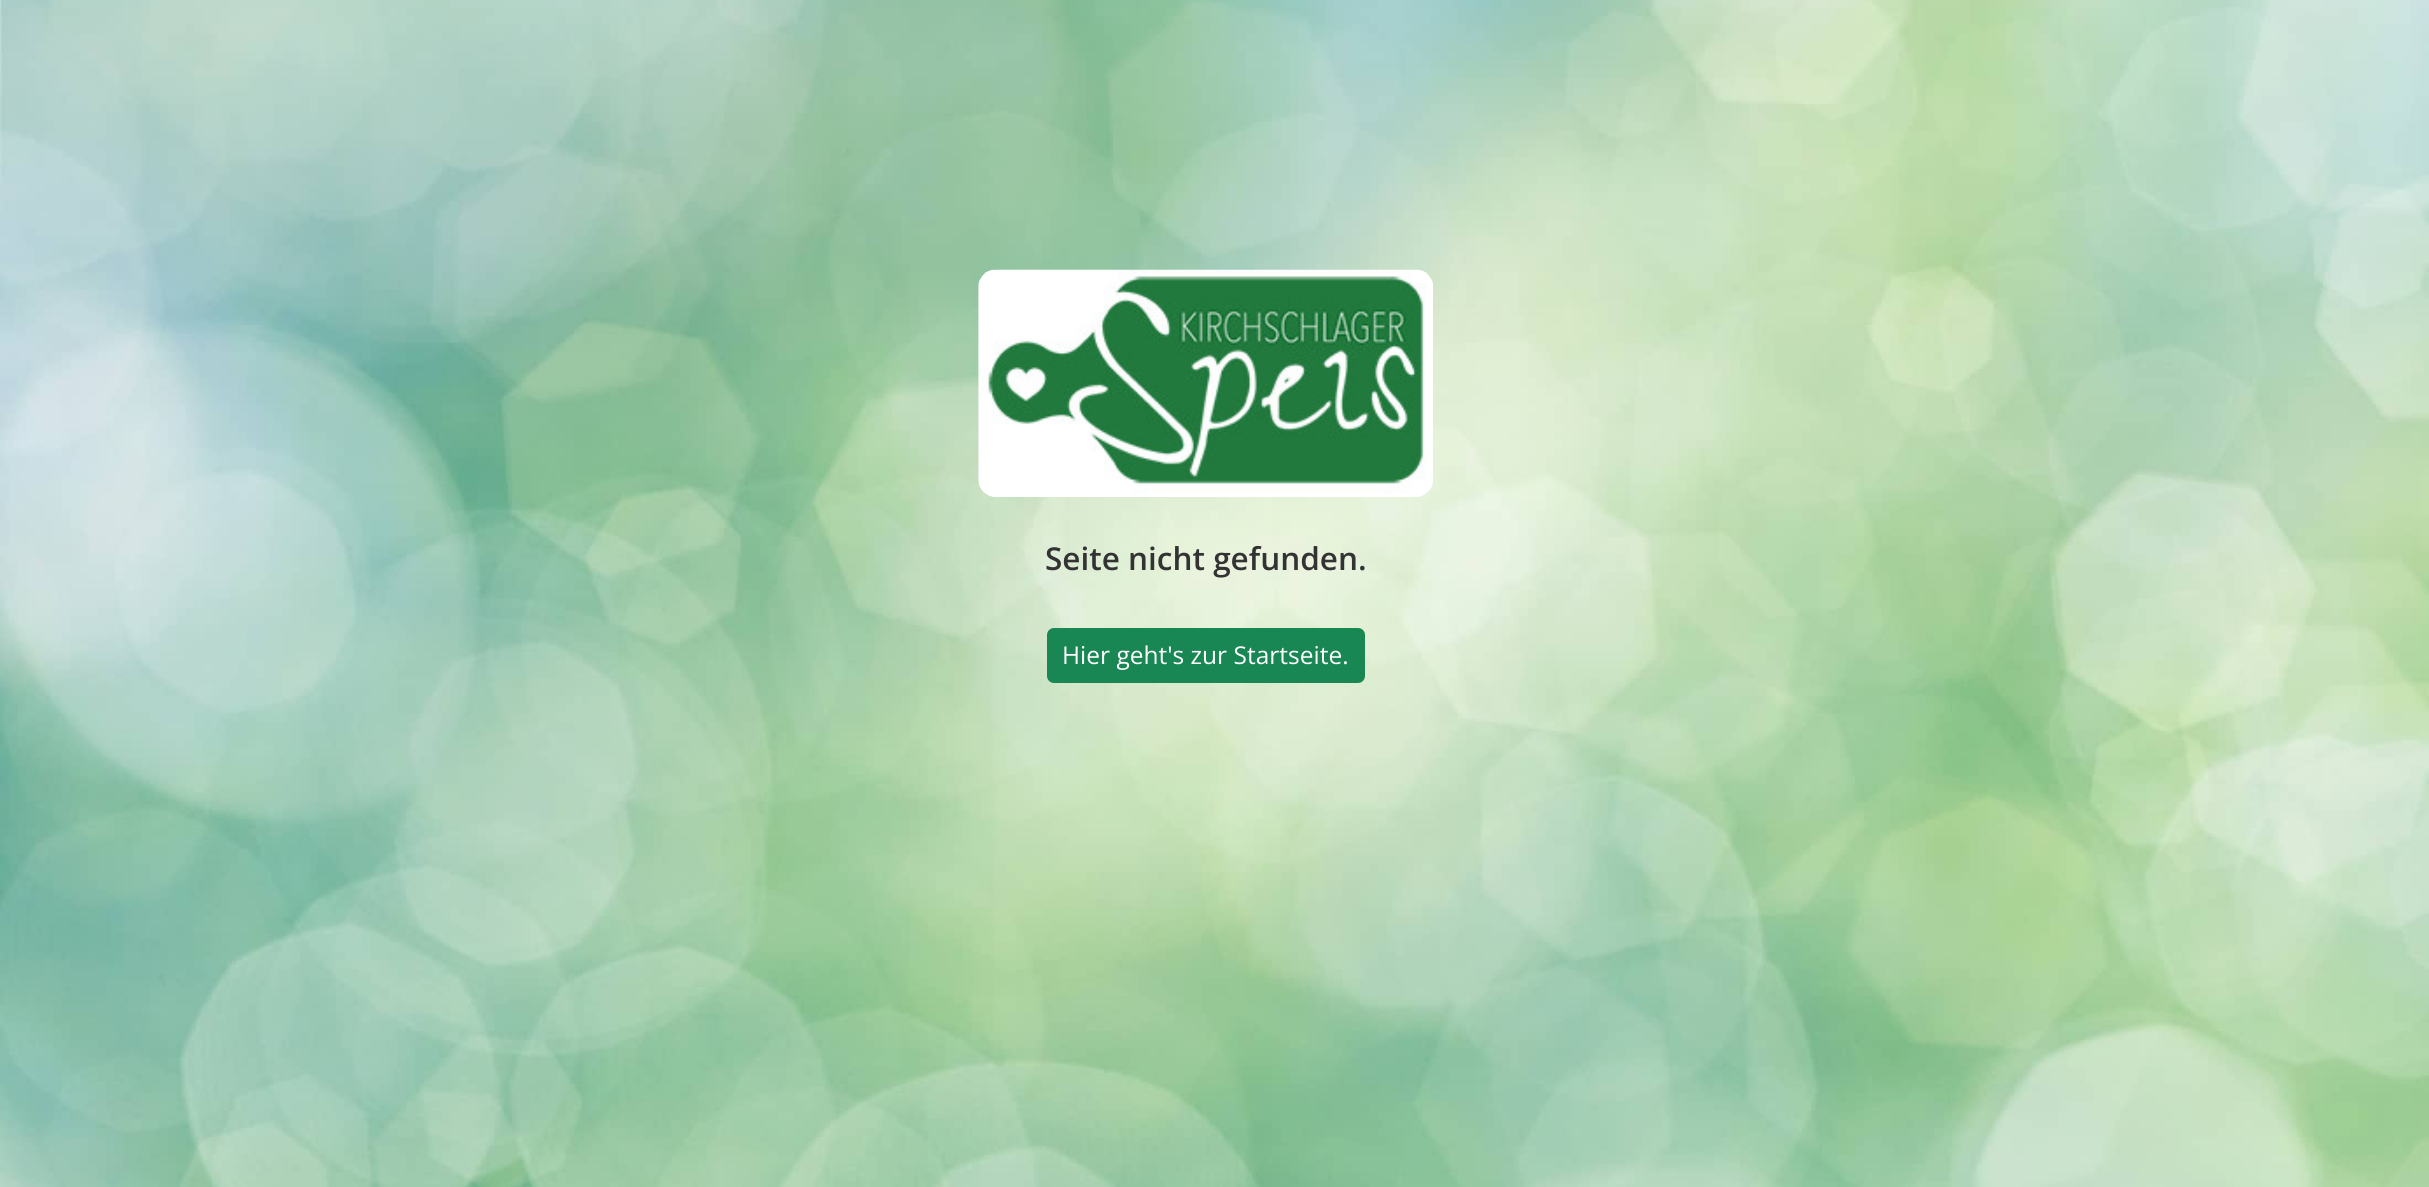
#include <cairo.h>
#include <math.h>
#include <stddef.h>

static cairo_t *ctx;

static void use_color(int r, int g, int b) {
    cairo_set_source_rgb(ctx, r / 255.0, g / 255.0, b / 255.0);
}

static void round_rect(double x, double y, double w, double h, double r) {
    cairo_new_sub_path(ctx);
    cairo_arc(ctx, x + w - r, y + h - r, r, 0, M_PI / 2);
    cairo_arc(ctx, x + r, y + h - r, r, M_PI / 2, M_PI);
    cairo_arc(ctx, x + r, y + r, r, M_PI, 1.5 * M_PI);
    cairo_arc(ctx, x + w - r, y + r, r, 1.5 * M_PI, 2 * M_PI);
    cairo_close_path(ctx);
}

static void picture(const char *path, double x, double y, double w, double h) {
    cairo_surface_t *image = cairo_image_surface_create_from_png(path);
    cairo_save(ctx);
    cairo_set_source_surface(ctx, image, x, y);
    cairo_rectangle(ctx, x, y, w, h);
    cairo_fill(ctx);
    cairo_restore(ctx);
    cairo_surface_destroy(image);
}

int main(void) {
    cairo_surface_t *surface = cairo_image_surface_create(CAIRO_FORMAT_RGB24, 2429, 1187);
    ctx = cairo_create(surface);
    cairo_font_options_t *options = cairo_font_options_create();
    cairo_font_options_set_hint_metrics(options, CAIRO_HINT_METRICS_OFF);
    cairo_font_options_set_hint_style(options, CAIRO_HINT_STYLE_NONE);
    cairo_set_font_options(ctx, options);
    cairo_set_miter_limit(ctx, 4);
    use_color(255, 255, 255);
    cairo_paint(ctx);
    picture("img1.png", 0, 0, 2429, 1187);
    picture("img2.png", 978, 269, 455, 228);
    cairo_select_font_face(ctx, "Open Sans SemiBold", CAIRO_FONT_SLANT_NORMAL, CAIRO_FONT_WEIGHT_NORMAL);
    cairo_set_font_size(ctx, 31.5);
    use_color(51, 51, 51);
    cairo_move_to(ctx, 1045, 570);
    cairo_show_text(ctx, "Seite nicht gefunden.");
    use_color(25, 135, 84);
    round_rect(1048, 629, 316, 53, 6);
    cairo_fill_preserve(ctx);
    cairo_stroke(ctx);
    cairo_select_font_face(ctx, "Open Sans", CAIRO_FONT_SLANT_NORMAL, CAIRO_FONT_WEIGHT_NORMAL);
    cairo_set_font_size(ctx, 24.5);
    use_color(255, 255, 255);
    cairo_move_to(ctx, 1062, 664);
    cairo_show_text(ctx, "Hier geht's zur Startseite.");
    cairo_surface_write_to_png(surface, "result.png");
    cairo_font_options_destroy(options);
    cairo_destroy(ctx);
    cairo_surface_destroy(surface);
    return 0;
}
